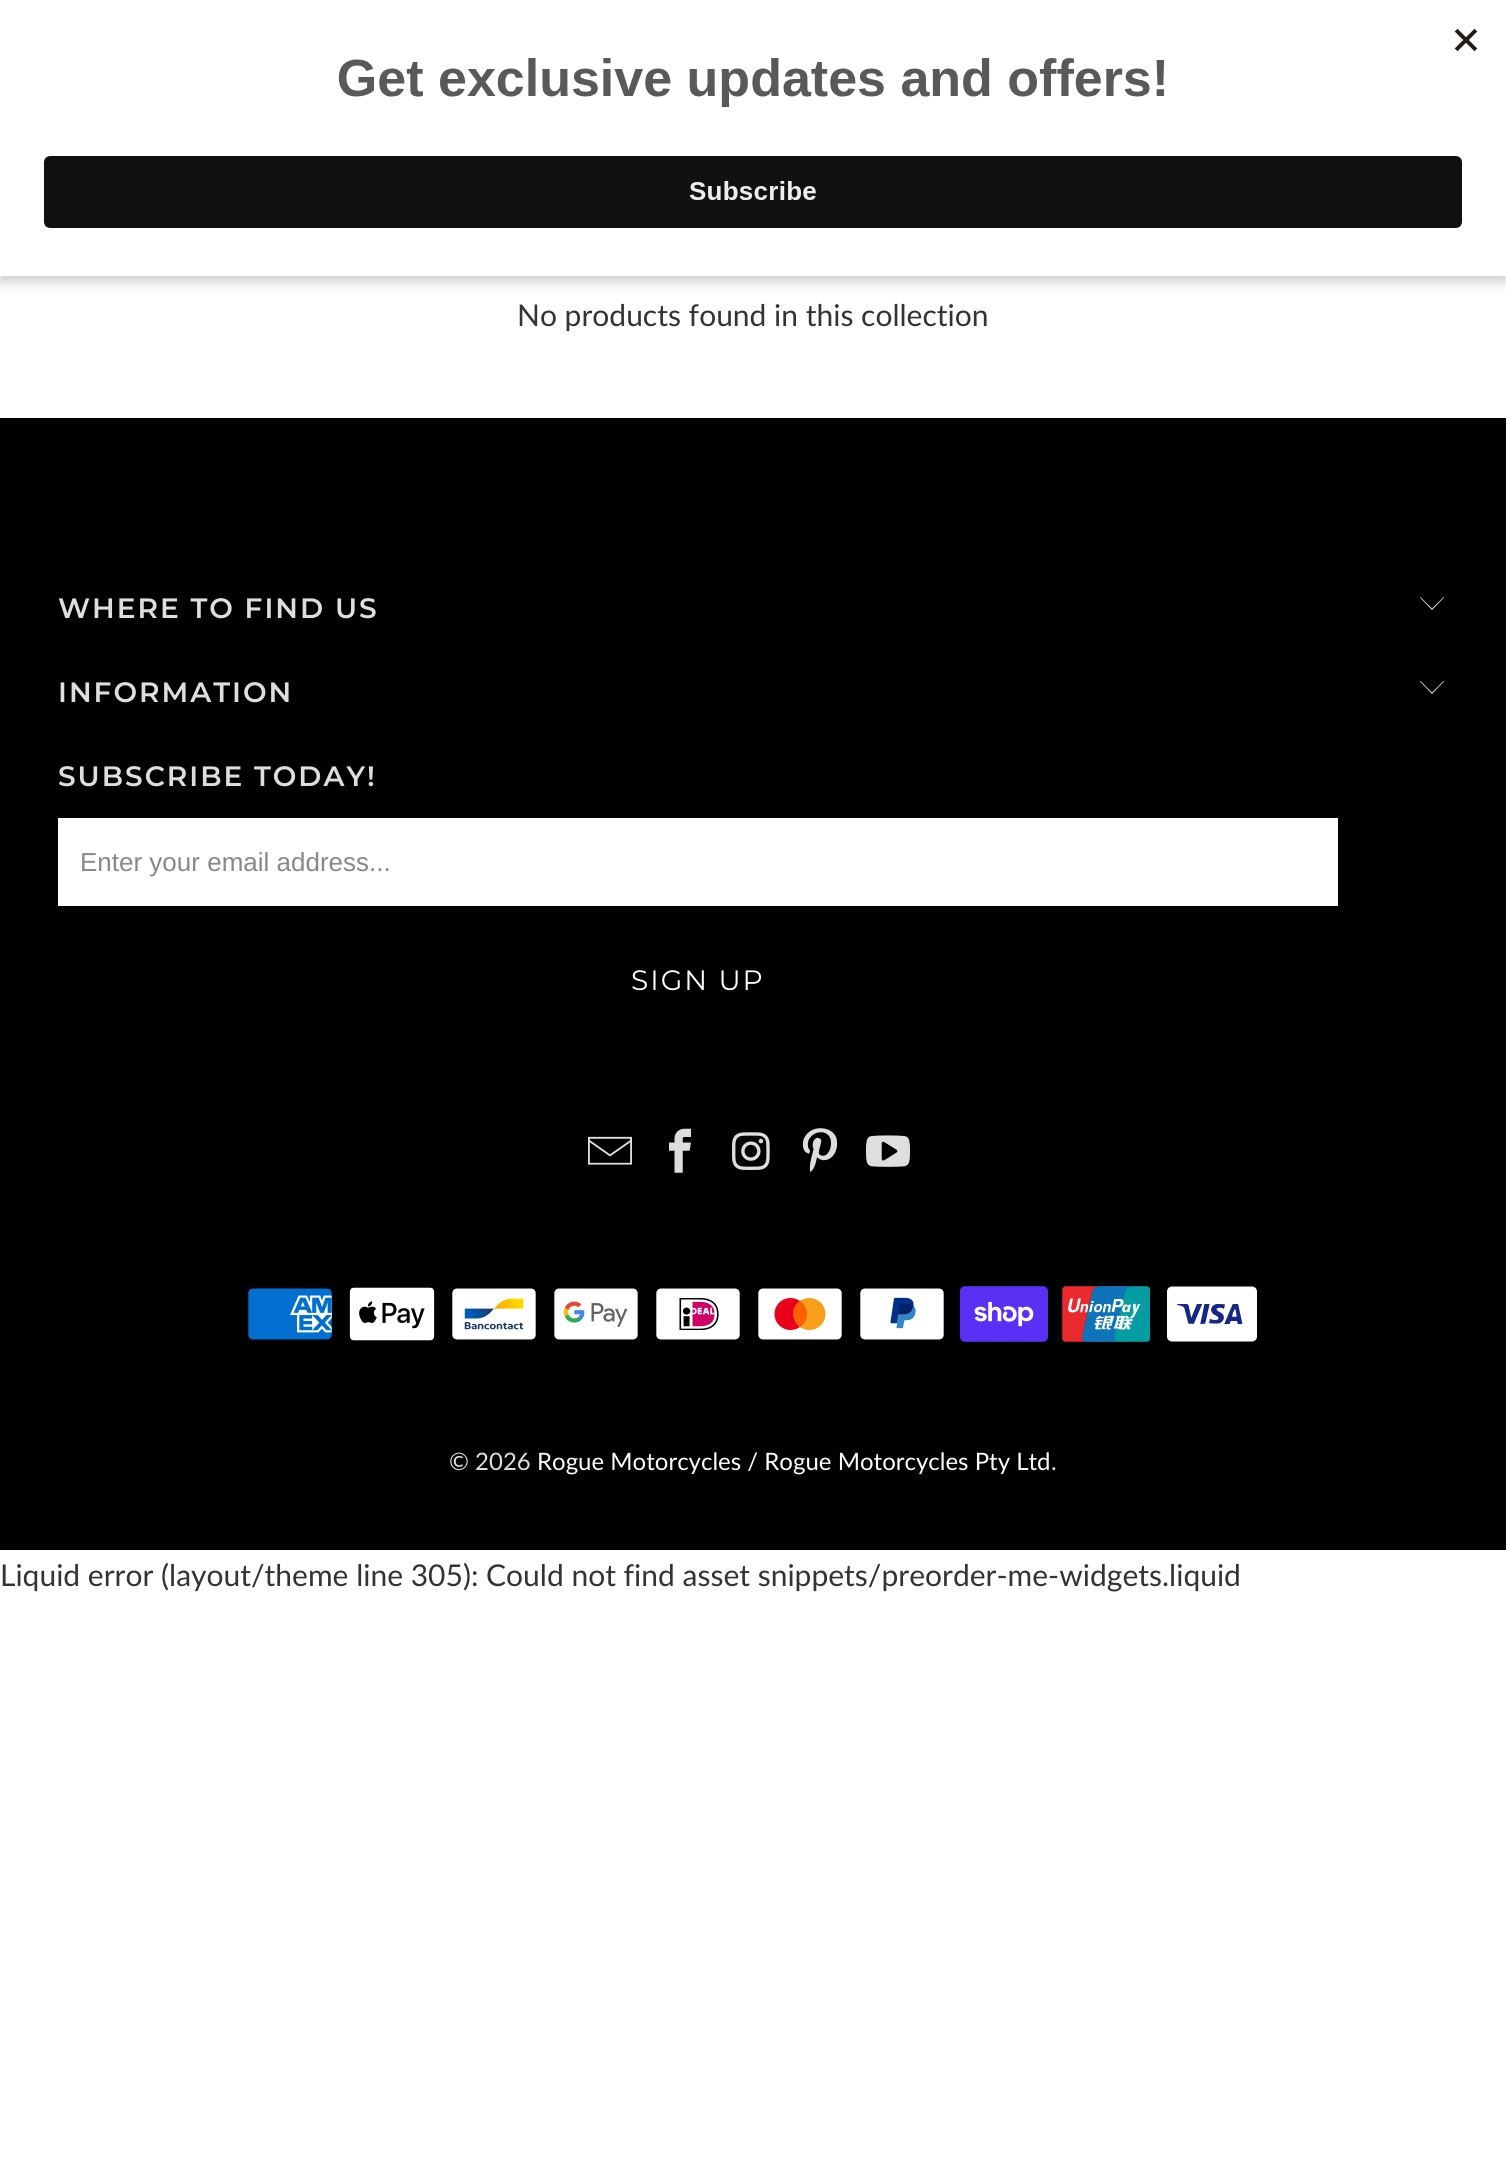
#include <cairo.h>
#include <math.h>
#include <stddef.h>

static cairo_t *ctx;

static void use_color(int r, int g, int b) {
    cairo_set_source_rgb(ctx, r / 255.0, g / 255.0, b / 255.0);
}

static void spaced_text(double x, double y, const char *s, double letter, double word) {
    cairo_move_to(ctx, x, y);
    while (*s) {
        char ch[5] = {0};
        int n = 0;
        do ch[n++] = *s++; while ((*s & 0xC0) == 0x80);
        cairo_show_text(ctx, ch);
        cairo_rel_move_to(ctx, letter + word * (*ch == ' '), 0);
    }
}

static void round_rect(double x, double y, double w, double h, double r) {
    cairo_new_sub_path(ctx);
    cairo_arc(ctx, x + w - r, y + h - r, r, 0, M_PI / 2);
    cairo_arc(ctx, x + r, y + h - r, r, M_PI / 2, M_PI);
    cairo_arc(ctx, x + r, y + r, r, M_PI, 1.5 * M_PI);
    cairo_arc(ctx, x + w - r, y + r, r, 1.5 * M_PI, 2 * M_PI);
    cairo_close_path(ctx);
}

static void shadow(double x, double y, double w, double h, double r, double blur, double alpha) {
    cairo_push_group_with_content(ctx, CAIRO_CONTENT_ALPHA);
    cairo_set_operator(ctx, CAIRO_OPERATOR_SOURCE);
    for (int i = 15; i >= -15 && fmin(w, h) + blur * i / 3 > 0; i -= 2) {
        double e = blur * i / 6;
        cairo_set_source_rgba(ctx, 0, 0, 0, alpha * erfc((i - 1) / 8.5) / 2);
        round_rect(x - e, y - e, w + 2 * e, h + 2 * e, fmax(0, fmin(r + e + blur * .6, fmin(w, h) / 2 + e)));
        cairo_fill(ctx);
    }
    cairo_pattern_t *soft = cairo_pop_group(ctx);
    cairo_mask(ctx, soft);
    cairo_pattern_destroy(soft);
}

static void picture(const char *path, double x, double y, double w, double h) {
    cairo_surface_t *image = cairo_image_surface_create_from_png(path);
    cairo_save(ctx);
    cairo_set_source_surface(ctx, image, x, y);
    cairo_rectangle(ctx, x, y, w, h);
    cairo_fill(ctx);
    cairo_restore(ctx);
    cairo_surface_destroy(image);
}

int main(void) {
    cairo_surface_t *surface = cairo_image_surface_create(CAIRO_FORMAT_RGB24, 1506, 2167);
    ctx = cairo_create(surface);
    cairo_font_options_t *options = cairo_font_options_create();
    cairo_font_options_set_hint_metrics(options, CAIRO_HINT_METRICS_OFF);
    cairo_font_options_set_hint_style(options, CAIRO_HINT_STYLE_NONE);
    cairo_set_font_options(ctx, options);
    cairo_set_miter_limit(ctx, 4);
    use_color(255, 255, 255);
    cairo_paint(ctx);
    use_color(0, 0, 0);
    shadow(0, 6, 1506, 276, 0, 6, 0.2);
    use_color(255, 255, 255);
    cairo_rectangle(ctx, 0, 0, 1506, 276);
    cairo_fill(ctx);
    picture("img1.png", 44, 28, 1434, 200);
    cairo_select_font_face(ctx, "Lato", CAIRO_FONT_SLANT_NORMAL, CAIRO_FONT_WEIGHT_NORMAL);
    cairo_set_font_size(ctx, 30);
    use_color(51, 51, 51);
    cairo_move_to(ctx, 517, 326);
    cairo_show_text(ctx, "No products found in this collection");
    use_color(0, 0, 0);
    cairo_rectangle(ctx, 0, 418, 1506, 1132);
    cairo_fill(ctx);
    cairo_select_font_face(ctx, "Montserrat SemiBold", CAIRO_FONT_SLANT_NORMAL, CAIRO_FONT_WEIGHT_NORMAL);
    cairo_set_font_size(ctx, 28);
    use_color(222, 222, 222);
    spaced_text(58, 618, "WHERE TO FIND US", 2, 0);
    cairo_new_path(ctx);
    cairo_move_to(ctx, 1432, 610);
    cairo_line_to(ctx, 1420, 597.5);
    cairo_line_to(ctx, 1420.5, 597);
    cairo_line_to(ctx, 1432, 608.5);
    cairo_line_to(ctx, 1443.5, 597);
    cairo_line_to(ctx, 1444, 597.5);
    cairo_close_path(ctx);
    cairo_fill(ctx);
    spaced_text(58, 702, "INFORMATION", 2, 0);
    cairo_new_path(ctx);
    cairo_move_to(ctx, 1432, 694);
    cairo_line_to(ctx, 1420, 681.5);
    cairo_line_to(ctx, 1420.5, 681);
    cairo_line_to(ctx, 1432, 692.5);
    cairo_line_to(ctx, 1443.5, 681);
    cairo_line_to(ctx, 1444, 681.5);
    cairo_close_path(ctx);
    cairo_fill(ctx);
    spaced_text(58, 786, "SUBSCRIBE TODAY!", 2, 0);
    use_color(255, 255, 255);
    cairo_rectangle(ctx, 58, 818, 1280, 88);
    cairo_fill(ctx);
    cairo_select_font_face(ctx, "Liberation Sans", CAIRO_FONT_SLANT_NORMAL, CAIRO_FONT_WEIGHT_NORMAL);
    cairo_set_font_size(ctx, 26);
    use_color(136, 136, 136);
    cairo_move_to(ctx, 80, 871);
    cairo_show_text(ctx, "Enter your email address...");
    cairo_select_font_face(ctx, "Montserrat", CAIRO_FONT_SLANT_NORMAL, CAIRO_FONT_WEIGHT_NORMAL);
    cairo_set_font_size(ctx, 28);
    use_color(255, 255, 255);
    spaced_text(631, 990, "SIGN UP", 2, 0);
    picture("img2.png", 588, 1136, 44, 29);
    picture("img3.png", 669, 1128, 22, 45);
    picture("img4.png", 732, 1132, 38, 38);
    picture("img5.png", 802, 1128, 36, 45);
    picture("img6.png", 866, 1135, 44, 32);
    picture("img7.png", 248, 1288, 84, 52);
    picture("img8.png", 349, 1287, 86, 54);
    picture("img9.png", 452, 1288, 84, 52);
    picture("img10.png", 554, 1288, 84, 52);
    picture("img11.png", 656, 1288, 84, 52);
    picture("img12.png", 758, 1288, 84, 52);
    picture("img13.png", 860, 1288, 84, 52);
    picture("img14.png", 960, 1286, 88, 56);
    picture("img15.png", 1062, 1286, 88, 56);
    picture("img16.png", 1167, 1286, 90, 56);
    cairo_select_font_face(ctx, "Lato", CAIRO_FONT_SLANT_NORMAL, CAIRO_FONT_WEIGHT_NORMAL);
    cairo_set_font_size(ctx, 24);
    use_color(222, 222, 222);
    cairo_move_to(ctx, 449, 1470);
    cairo_show_text(ctx, "© 2026");
    use_color(255, 255, 255);
    cairo_move_to(ctx, 537, 1470);
    cairo_show_text(ctx, "Rogue Motorcycles / Rogue Motorcycles Pty Ltd");
    use_color(222, 222, 222);
    cairo_move_to(ctx, 1051, 1470);
    cairo_show_text(ctx, ".");
    cairo_set_font_size(ctx, 30);
    use_color(51, 51, 51);
    cairo_move_to(ctx, 0, 1586);
    cairo_show_text(ctx, "Liquid error (layout/theme line 305): Could not find asset snippets/preorder-me-widgets.liquid");
    cairo_surface_write_to_png(surface, "result.png");
    cairo_font_options_destroy(options);
    cairo_destroy(ctx);
    cairo_surface_destroy(surface);
    return 0;
}
